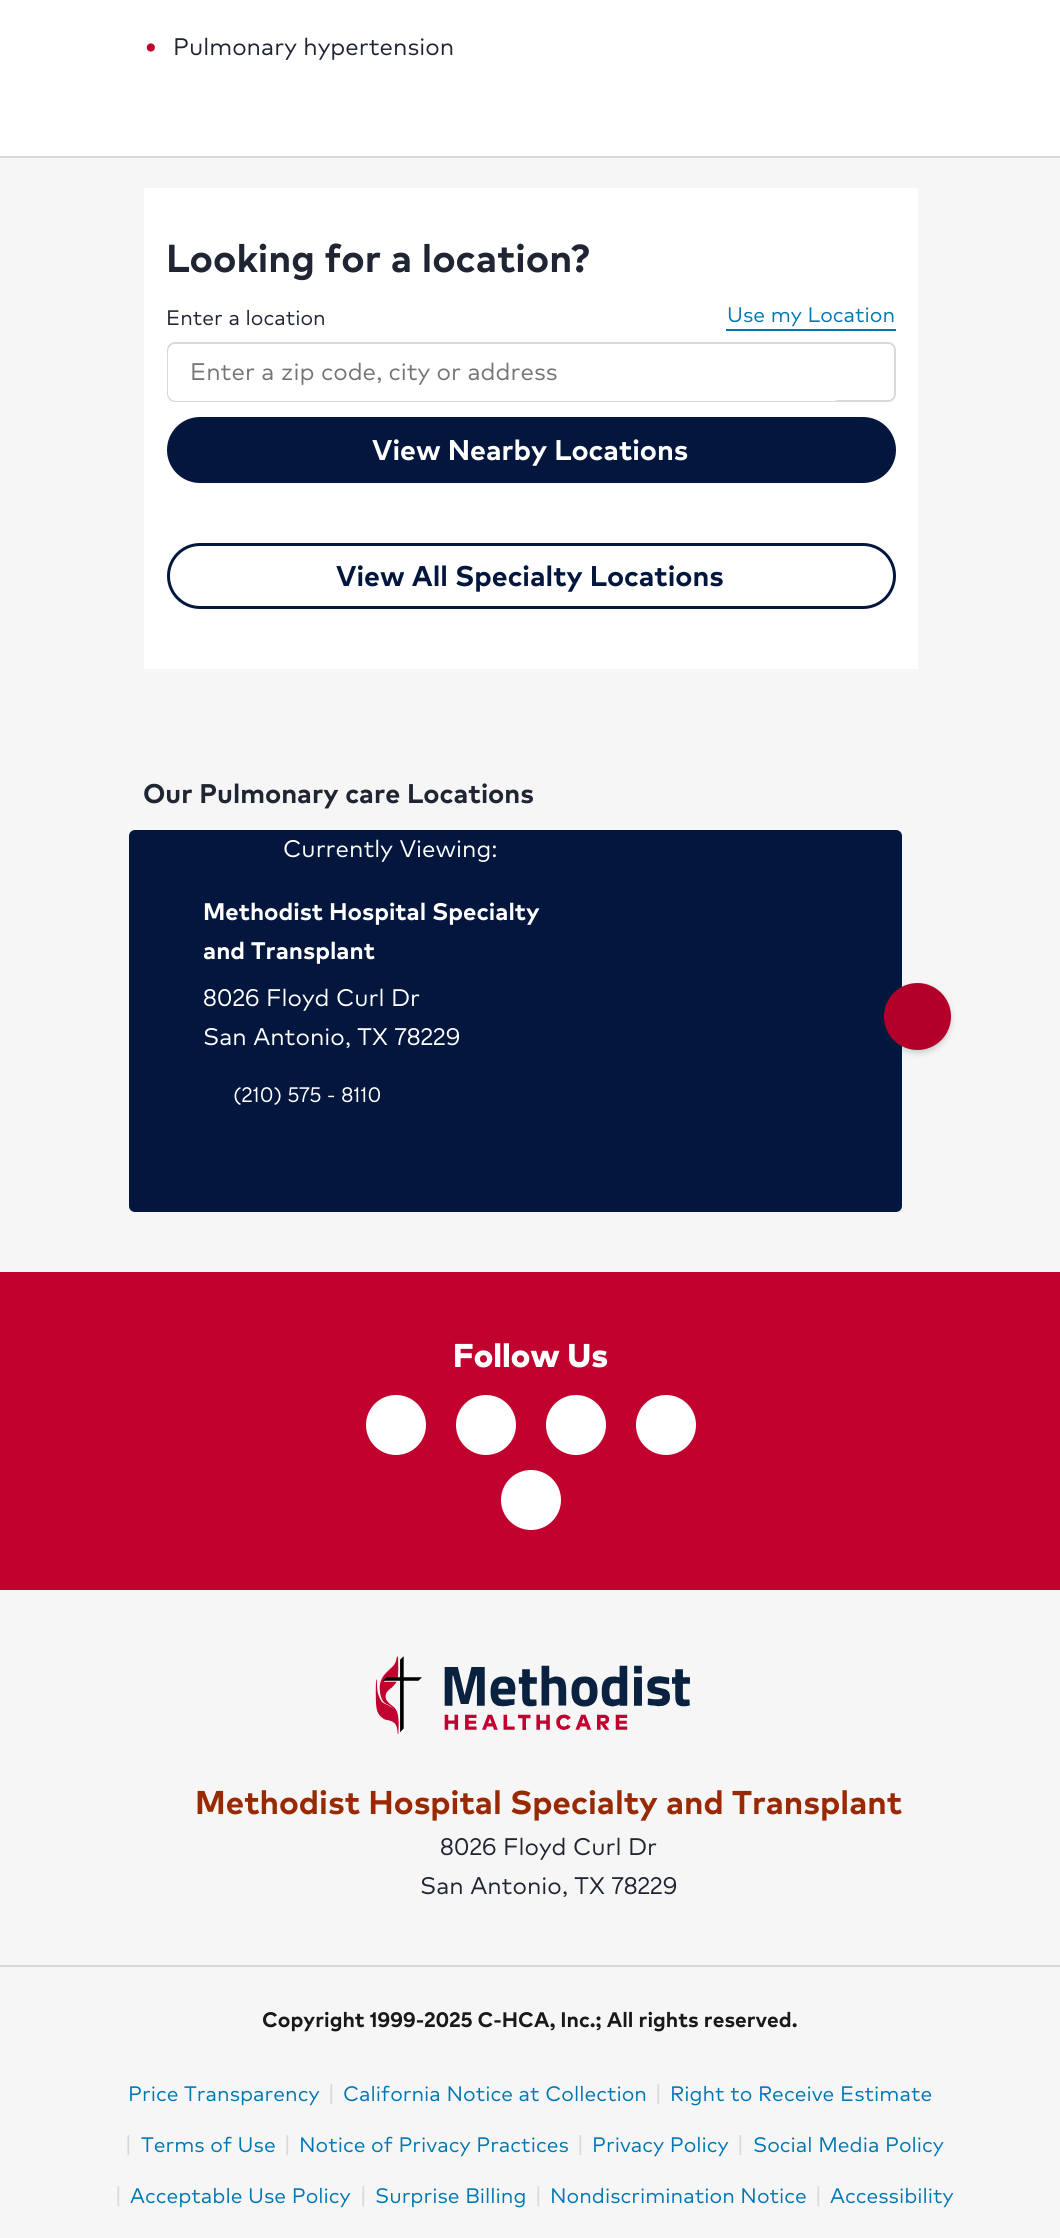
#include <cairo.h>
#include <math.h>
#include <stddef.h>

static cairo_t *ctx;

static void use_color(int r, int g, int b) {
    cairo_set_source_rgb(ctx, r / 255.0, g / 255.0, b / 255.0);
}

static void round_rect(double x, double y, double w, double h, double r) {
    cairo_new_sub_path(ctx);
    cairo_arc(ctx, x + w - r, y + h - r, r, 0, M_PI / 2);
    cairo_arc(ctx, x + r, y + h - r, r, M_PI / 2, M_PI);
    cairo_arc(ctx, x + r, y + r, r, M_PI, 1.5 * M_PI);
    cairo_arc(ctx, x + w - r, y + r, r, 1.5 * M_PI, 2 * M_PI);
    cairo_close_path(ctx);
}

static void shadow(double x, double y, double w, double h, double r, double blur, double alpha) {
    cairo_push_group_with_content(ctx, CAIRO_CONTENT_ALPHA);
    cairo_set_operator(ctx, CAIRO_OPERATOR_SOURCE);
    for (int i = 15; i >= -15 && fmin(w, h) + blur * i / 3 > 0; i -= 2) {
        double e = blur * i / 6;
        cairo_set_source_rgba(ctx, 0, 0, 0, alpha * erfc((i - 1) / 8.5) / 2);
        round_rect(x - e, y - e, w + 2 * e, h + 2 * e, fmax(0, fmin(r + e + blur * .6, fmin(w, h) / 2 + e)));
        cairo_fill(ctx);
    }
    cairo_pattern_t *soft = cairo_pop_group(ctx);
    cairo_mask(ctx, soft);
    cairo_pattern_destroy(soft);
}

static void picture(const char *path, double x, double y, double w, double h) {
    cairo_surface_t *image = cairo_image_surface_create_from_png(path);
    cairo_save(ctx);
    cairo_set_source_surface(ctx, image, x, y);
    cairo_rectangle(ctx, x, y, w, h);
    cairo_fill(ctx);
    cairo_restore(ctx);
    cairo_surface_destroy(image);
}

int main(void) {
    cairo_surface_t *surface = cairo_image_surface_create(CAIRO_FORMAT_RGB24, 1060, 2238);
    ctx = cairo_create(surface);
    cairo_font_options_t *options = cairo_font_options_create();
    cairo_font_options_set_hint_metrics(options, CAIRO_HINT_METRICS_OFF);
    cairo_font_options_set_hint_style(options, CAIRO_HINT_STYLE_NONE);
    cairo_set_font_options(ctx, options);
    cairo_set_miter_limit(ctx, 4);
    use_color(246, 246, 246);
    cairo_paint(ctx);
    use_color(255, 255, 255);
    cairo_rectangle(ctx, 0, 0, 1060, 156);
    cairo_fill(ctx);
    use_color(217, 217, 214);
    cairo_rectangle(ctx, 0, 156, 1060, 2);
    cairo_fill(ctx);
    cairo_select_font_face(ctx, "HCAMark", CAIRO_FONT_SLANT_NORMAL, CAIRO_FONT_WEIGHT_NORMAL);
    cairo_set_font_size(ctx, 36);
    use_color(193, 2, 47);
    cairo_move_to(ctx, 143, 57);
    cairo_show_text(ctx, "•");
    cairo_set_font_size(ctx, 24);
    use_color(31, 37, 50);
    cairo_move_to(ctx, 173, 55);
    cairo_show_text(ctx, "Pulmonary hypertension");
    use_color(255, 255, 255);
    cairo_rectangle(ctx, 144, 188, 774, 481);
    cairo_fill(ctx);
    cairo_select_font_face(ctx, "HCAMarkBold", CAIRO_FONT_SLANT_NORMAL, CAIRO_FONT_WEIGHT_BOLD);
    cairo_set_font_size(ctx, 39);
    use_color(31, 37, 50);
    cairo_move_to(ctx, 166, 272);
    cairo_show_text(ctx, "Looking for a location?");
    cairo_select_font_face(ctx, "HCAMark", CAIRO_FONT_SLANT_NORMAL, CAIRO_FONT_WEIGHT_NORMAL);
    cairo_set_font_size(ctx, 21);
    cairo_move_to(ctx, 166, 325);
    cairo_show_text(ctx, "Enter a location");
    round_rect(168, 343, 727, 58, 7);
    use_color(217, 217, 214);
    cairo_stroke(ctx);
    use_color(255, 255, 255);
    round_rect(168, 344, 674, 57, 8);
    cairo_fill(ctx);
    cairo_set_font_size(ctx, 24);
    use_color(117, 117, 117);
    cairo_move_to(ctx, 190, 380);
    cairo_show_text(ctx, "Enter a zip code, city or address");
    cairo_set_font_size(ctx, 21);
    use_color(0, 119, 181);
    cairo_move_to(ctx, 727, 322);
    cairo_show_text(ctx, "Use my Location");
    cairo_rectangle(ctx, 726, 329, 170, 2);
    cairo_fill(ctx);
    use_color(3, 23, 62);
    round_rect(168.5, 418.5, 726, 63, 31.5);
    cairo_fill_preserve(ctx);
    cairo_set_line_width(ctx, 3);
    cairo_stroke(ctx);
    cairo_select_font_face(ctx, "HCAMarkBold", CAIRO_FONT_SLANT_NORMAL, CAIRO_FONT_WEIGHT_BOLD);
    cairo_set_font_size(ctx, 28.5);
    use_color(255, 255, 255);
    cairo_move_to(ctx, 372, 460);
    cairo_show_text(ctx, "View Nearby Locations");
    round_rect(168.5, 544.5, 726, 63, 31.5);
    use_color(3, 23, 62);
    cairo_stroke(ctx);
    cairo_move_to(ctx, 336, 586);
    cairo_show_text(ctx, "View All Specialty Locations");
    cairo_set_font_size(ctx, 27);
    use_color(31, 37, 50);
    cairo_move_to(ctx, 143, 803);
    cairo_show_text(ctx, "Our Pulmonary care Locations");
    use_color(3, 23, 62);
    round_rect(129, 830, 773, 382, 6);
    cairo_fill(ctx);
    cairo_select_font_face(ctx, "HCAMark", CAIRO_FONT_SLANT_NORMAL, CAIRO_FONT_WEIGHT_NORMAL);
    cairo_set_font_size(ctx, 24);
    use_color(255, 255, 255);
    cairo_move_to(ctx, 283, 857);
    cairo_show_text(ctx, "Currently Viewing:");
    cairo_select_font_face(ctx, "HCAMarkBold", CAIRO_FONT_SLANT_NORMAL, CAIRO_FONT_WEIGHT_BOLD);
    cairo_move_to(ctx, 203, 920);
    cairo_show_text(ctx, "Methodist Hospital Specialty");
    cairo_move_to(ctx, 203, 959);
    cairo_show_text(ctx, "and Transplant");
    cairo_select_font_face(ctx, "HCAMark", CAIRO_FONT_SLANT_NORMAL, CAIRO_FONT_WEIGHT_NORMAL);
    cairo_move_to(ctx, 203, 1006);
    cairo_show_text(ctx, "8026 Floyd Curl Dr");
    cairo_move_to(ctx, 203, 1045);
    cairo_show_text(ctx, "San Antonio, TX 78229");
    cairo_set_font_size(ctx, 21);
    cairo_move_to(ctx, 233, 1102);
    cairo_show_text(ctx, "(210) 575 - 8110");
    use_color(31, 37, 50);
    shadow(884, 986, 67, 67, 33.5, 3, 0.2);
    use_color(179, 0, 42);
    cairo_arc(ctx, 917.5, 1016.5, 33.5, 0, 2 * M_PI);
    cairo_fill(ctx);
    use_color(193, 2, 47);
    cairo_rectangle(ctx, 0, 1272, 1060, 318);
    cairo_fill(ctx);
    cairo_select_font_face(ctx, "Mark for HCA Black", CAIRO_FONT_SLANT_NORMAL, CAIRO_FONT_WEIGHT_NORMAL);
    cairo_set_font_size(ctx, 33);
    use_color(255, 255, 255);
    cairo_move_to(ctx, 453, 1367);
    cairo_show_text(ctx, "Follow Us");
    cairo_new_path(ctx);
    cairo_arc(ctx, 396, 1425, 30, 0, 2 * M_PI);
    cairo_fill(ctx);
    cairo_arc(ctx, 486, 1425, 30, 0, 2 * M_PI);
    cairo_fill(ctx);
    cairo_arc(ctx, 576, 1425, 30, 0, 2 * M_PI);
    cairo_fill(ctx);
    cairo_arc(ctx, 666, 1425, 30, 0, 2 * M_PI);
    cairo_fill(ctx);
    cairo_arc(ctx, 531, 1500, 30, 0, 2 * M_PI);
    cairo_fill(ctx);
    use_color(217, 217, 214);
    cairo_rectangle(ctx, 0, 1965, 1060, 2);
    cairo_fill(ctx);
    picture("img1.png", 375, 1656, 315, 78);
    cairo_select_font_face(ctx, "HCAMarkBold", CAIRO_FONT_SLANT_NORMAL, CAIRO_FONT_WEIGHT_BOLD);
    use_color(153, 41, 2);
    cairo_move_to(ctx, 195, 1814);
    cairo_show_text(ctx, "Methodist Hospital Specialty and Transplant");
    cairo_select_font_face(ctx, "HCAMark", CAIRO_FONT_SLANT_NORMAL, CAIRO_FONT_WEIGHT_NORMAL);
    cairo_set_font_size(ctx, 24);
    use_color(31, 37, 50);
    cairo_move_to(ctx, 440, 1855);
    cairo_show_text(ctx, "8026 Floyd Curl Dr");
    cairo_move_to(ctx, 420, 1894);
    cairo_show_text(ctx, "San Antonio, TX 78229");
    cairo_select_font_face(ctx, "HCAMarkBold", CAIRO_FONT_SLANT_NORMAL, CAIRO_FONT_WEIGHT_BOLD);
    cairo_set_font_size(ctx, 21);
    use_color(25, 25, 25);
    cairo_move_to(ctx, 262, 2027);
    cairo_show_text(ctx, "Copyright 1999-2025 C-HCA, Inc.; All rights reserved.");
    cairo_select_font_face(ctx, "HCAMark", CAIRO_FONT_SLANT_NORMAL, CAIRO_FONT_WEIGHT_NORMAL);
    use_color(0, 119, 181);
    cairo_move_to(ctx, 128, 2101);
    cairo_show_text(ctx, "Price Transparency");
    cairo_set_font_size(ctx, 24);
    use_color(217, 217, 214);
    cairo_move_to(ctx, 327, 2101);
    cairo_show_text(ctx, "|");
    cairo_set_font_size(ctx, 21);
    use_color(0, 119, 181);
    cairo_move_to(ctx, 343, 2101);
    cairo_show_text(ctx, "California Notice at Collection");
    cairo_set_font_size(ctx, 24);
    use_color(217, 217, 214);
    cairo_move_to(ctx, 654, 2101);
    cairo_show_text(ctx, "|");
    cairo_set_font_size(ctx, 21);
    use_color(0, 119, 181);
    cairo_move_to(ctx, 670, 2101);
    cairo_show_text(ctx, "Right to Receive Estimate");
    cairo_set_font_size(ctx, 24);
    use_color(217, 217, 214);
    cairo_move_to(ctx, 124, 2152);
    cairo_show_text(ctx, "|");
    cairo_set_font_size(ctx, 21);
    use_color(0, 119, 181);
    cairo_move_to(ctx, 141, 2152);
    cairo_show_text(ctx, "Terms of Use");
    cairo_set_font_size(ctx, 24);
    use_color(217, 217, 214);
    cairo_move_to(ctx, 283, 2152);
    cairo_show_text(ctx, "|");
    cairo_set_font_size(ctx, 21);
    use_color(0, 119, 181);
    cairo_move_to(ctx, 299, 2152);
    cairo_show_text(ctx, "Notice of Privacy Practices");
    cairo_set_font_size(ctx, 24);
    use_color(217, 217, 214);
    cairo_move_to(ctx, 576, 2152);
    cairo_show_text(ctx, "|");
    cairo_set_font_size(ctx, 21);
    use_color(0, 119, 181);
    cairo_move_to(ctx, 592, 2152);
    cairo_show_text(ctx, "Privacy Policy");
    cairo_set_font_size(ctx, 24);
    use_color(217, 217, 214);
    cairo_move_to(ctx, 736, 2152);
    cairo_show_text(ctx, "|");
    cairo_set_font_size(ctx, 21);
    use_color(0, 119, 181);
    cairo_move_to(ctx, 753, 2152);
    cairo_show_text(ctx, "Social Media Policy");
    cairo_set_font_size(ctx, 24);
    use_color(217, 217, 214);
    cairo_move_to(ctx, 114, 2203);
    cairo_show_text(ctx, "|");
    cairo_set_font_size(ctx, 21);
    use_color(0, 119, 181);
    cairo_move_to(ctx, 130, 2203);
    cairo_show_text(ctx, "Acceptable Use Policy");
    cairo_set_font_size(ctx, 24);
    use_color(217, 217, 214);
    cairo_move_to(ctx, 359, 2203);
    cairo_show_text(ctx, "|");
    cairo_set_font_size(ctx, 21);
    use_color(0, 119, 181);
    cairo_move_to(ctx, 375, 2203);
    cairo_show_text(ctx, "Surprise Billing");
    cairo_set_font_size(ctx, 24);
    use_color(217, 217, 214);
    cairo_move_to(ctx, 534, 2203);
    cairo_show_text(ctx, "|");
    cairo_set_font_size(ctx, 21);
    use_color(0, 119, 181);
    cairo_move_to(ctx, 550, 2203);
    cairo_show_text(ctx, "Nondiscrimination Notice");
    cairo_set_font_size(ctx, 24);
    use_color(217, 217, 214);
    cairo_move_to(ctx, 814, 2203);
    cairo_show_text(ctx, "|");
    cairo_set_font_size(ctx, 21);
    use_color(0, 119, 181);
    cairo_move_to(ctx, 830, 2203);
    cairo_show_text(ctx, "Accessibility");
    cairo_surface_write_to_png(surface, "result.png");
    cairo_font_options_destroy(options);
    cairo_destroy(ctx);
    cairo_surface_destroy(surface);
    return 0;
}
